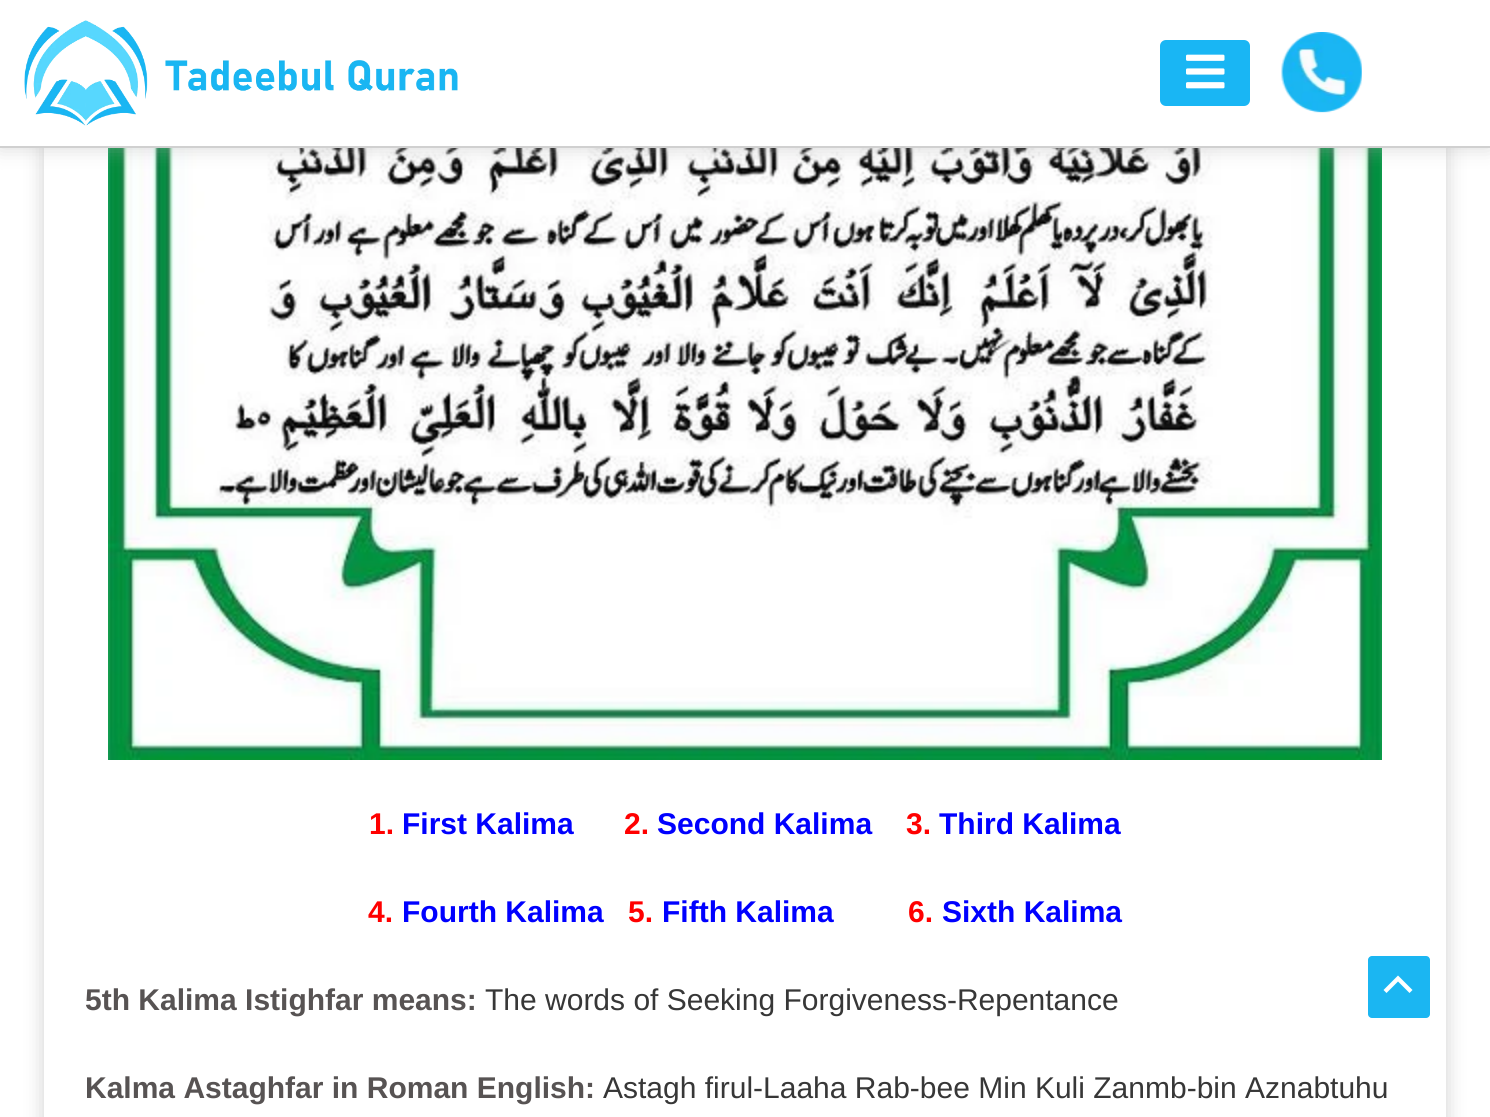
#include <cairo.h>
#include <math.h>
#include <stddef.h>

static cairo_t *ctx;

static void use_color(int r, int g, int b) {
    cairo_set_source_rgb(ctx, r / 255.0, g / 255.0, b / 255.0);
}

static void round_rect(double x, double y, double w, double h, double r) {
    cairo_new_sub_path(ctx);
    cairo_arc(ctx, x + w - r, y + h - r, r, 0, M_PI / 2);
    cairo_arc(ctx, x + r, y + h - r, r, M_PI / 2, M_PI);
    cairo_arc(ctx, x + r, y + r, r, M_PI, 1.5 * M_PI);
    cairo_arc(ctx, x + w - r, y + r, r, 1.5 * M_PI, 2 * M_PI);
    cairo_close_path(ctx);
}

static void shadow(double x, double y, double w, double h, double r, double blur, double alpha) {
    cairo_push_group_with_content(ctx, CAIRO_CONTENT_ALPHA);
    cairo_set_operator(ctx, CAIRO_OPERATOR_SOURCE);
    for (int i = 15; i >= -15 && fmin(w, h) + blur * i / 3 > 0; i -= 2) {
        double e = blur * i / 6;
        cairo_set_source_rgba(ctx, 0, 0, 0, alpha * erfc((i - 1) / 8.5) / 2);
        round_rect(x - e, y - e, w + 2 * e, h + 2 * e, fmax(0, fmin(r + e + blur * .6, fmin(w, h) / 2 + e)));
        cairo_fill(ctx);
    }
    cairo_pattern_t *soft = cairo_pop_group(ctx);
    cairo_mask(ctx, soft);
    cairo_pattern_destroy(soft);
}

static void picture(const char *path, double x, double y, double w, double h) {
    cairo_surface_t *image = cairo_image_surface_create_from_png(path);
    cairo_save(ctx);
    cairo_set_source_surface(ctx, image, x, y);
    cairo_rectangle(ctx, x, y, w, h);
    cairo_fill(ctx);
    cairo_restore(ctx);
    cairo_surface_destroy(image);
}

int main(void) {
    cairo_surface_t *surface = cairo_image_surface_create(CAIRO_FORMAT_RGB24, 1490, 1117);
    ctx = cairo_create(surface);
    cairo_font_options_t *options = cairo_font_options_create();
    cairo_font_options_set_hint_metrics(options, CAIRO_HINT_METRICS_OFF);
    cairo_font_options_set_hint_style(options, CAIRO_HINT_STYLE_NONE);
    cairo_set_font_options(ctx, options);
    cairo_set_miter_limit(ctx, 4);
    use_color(255, 255, 255);
    cairo_paint(ctx);
    cairo_save(ctx);
    cairo_set_fill_rule(ctx, CAIRO_FILL_RULE_EVEN_ODD);
    cairo_new_path(ctx);
    cairo_move_to(ctx, 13, 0);
    cairo_line_to(ctx, 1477, 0);
    cairo_line_to(ctx, 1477, 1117);
    cairo_line_to(ctx, 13, 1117);
    cairo_close_path(ctx);
    cairo_move_to(ctx, 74, -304);
    cairo_line_to(ctx, 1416, -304);
    cairo_curve_to(ctx, 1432.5, -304, 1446, -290.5, 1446, -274);
    cairo_line_to(ctx, 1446, 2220);
    cairo_curve_to(ctx, 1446, 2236.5, 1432.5, 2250, 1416, 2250);
    cairo_line_to(ctx, 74, 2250);
    cairo_curve_to(ctx, 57.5, 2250, 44, 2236.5, 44, 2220);
    cairo_line_to(ctx, 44, -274);
    cairo_curve_to(ctx, 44, -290.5, 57.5, -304, 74, -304);
    cairo_close_path(ctx);
    cairo_clip(ctx);
    use_color(163, 163, 163);
    shadow(44, -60, 1402, 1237, 30, 10, 0.5);
    cairo_restore(ctx);
    picture("img4.png", 108, 148, 1274, 612);
    use_color(179, 179, 179);
    shadow(0, 0, 1490, 148, 0, 10, 0.5);
    use_color(255, 255, 255);
    cairo_rectangle(ctx, 0, 0, 1490, 146);
    cairo_fill(ctx);
    use_color(208, 208, 208);
    cairo_rectangle(ctx, 0, 146, 1490, 2);
    cairo_fill(ctx);
    picture("img1.png", 24, 20, 434, 106);
    use_color(25, 182, 244);
    round_rect(1160, 40, 90, 66, 6);
    cairo_fill(ctx);
    picture("img2.png", 1186, 54, 39, 35);
    picture("img3.png", 1281, 32, 81, 81);
    cairo_select_font_face(ctx, "Liberation Sans", CAIRO_FONT_SLANT_NORMAL, CAIRO_FONT_WEIGHT_BOLD);
    cairo_set_font_size(ctx, 30);
    use_color(255, 0, 0);
    cairo_move_to(ctx, 369, 834);
    cairo_show_text(ctx, "1.");
    use_color(0, 0, 255);
    cairo_move_to(ctx, 402, 834);
    cairo_show_text(ctx, "First Kalima");
    use_color(255, 0, 0);
    cairo_move_to(ctx, 624, 834);
    cairo_show_text(ctx, "2.");
    use_color(0, 0, 255);
    cairo_move_to(ctx, 657, 834);
    cairo_show_text(ctx, "Second Kalima");
    use_color(255, 0, 0);
    cairo_move_to(ctx, 906, 834);
    cairo_show_text(ctx, "3.");
    use_color(0, 0, 255);
    cairo_move_to(ctx, 939, 834);
    cairo_show_text(ctx, "Third Kalima");
    use_color(255, 0, 0);
    cairo_move_to(ctx, 368, 922);
    cairo_show_text(ctx, "4.");
    use_color(0, 0, 255);
    cairo_move_to(ctx, 402, 922);
    cairo_show_text(ctx, "Fourth Kalima");
    use_color(255, 0, 0);
    cairo_move_to(ctx, 628, 922);
    cairo_show_text(ctx, "5.");
    use_color(0, 0, 255);
    cairo_move_to(ctx, 662, 922);
    cairo_show_text(ctx, "Fifth Kalima");
    use_color(255, 0, 0);
    cairo_move_to(ctx, 908, 922);
    cairo_show_text(ctx, "6.");
    use_color(0, 0, 255);
    cairo_move_to(ctx, 942, 922);
    cairo_show_text(ctx, "Sixth Kalima");
    use_color(87, 83, 83);
    cairo_move_to(ctx, 85, 1010);
    cairo_show_text(ctx, "5th Kalima Istighfar means:");
    cairo_select_font_face(ctx, "Liberation Sans", CAIRO_FONT_SLANT_NORMAL, CAIRO_FONT_WEIGHT_NORMAL);
    use_color(55, 55, 55);
    cairo_move_to(ctx, 485, 1010);
    cairo_show_text(ctx, "The words of Seeking Forgiveness-Repentance");
    cairo_select_font_face(ctx, "Liberation Sans", CAIRO_FONT_SLANT_NORMAL, CAIRO_FONT_WEIGHT_BOLD);
    use_color(87, 83, 83);
    cairo_move_to(ctx, 85, 1098);
    cairo_show_text(ctx, "Kalma Astaghfar in Roman English:");
    cairo_select_font_face(ctx, "Liberation Sans", CAIRO_FONT_SLANT_NORMAL, CAIRO_FONT_WEIGHT_NORMAL);
    use_color(55, 55, 55);
    cairo_move_to(ctx, 603, 1098);
    cairo_show_text(ctx, "Astagh firul-Laaha Rab-bee Min Kuli Zanmb-bin Aznabtuhu");
    use_color(27, 182, 242);
    round_rect(1368, 956, 62, 62, 4);
    cairo_fill(ctx);
    use_color(255, 255, 255);
    cairo_new_path(ctx);
    cairo_move_to(ctx, 1412.5, 990);
    cairo_line_to(ctx, 1398, 975.5);
    cairo_line_to(ctx, 1383.5, 990);
    cairo_line_to(ctx, 1386.5, 993);
    cairo_line_to(ctx, 1398, 981.5);
    cairo_line_to(ctx, 1409.5, 993);
    cairo_close_path(ctx);
    cairo_fill(ctx);
    cairo_surface_write_to_png(surface, "result.png");
    cairo_font_options_destroy(options);
    cairo_destroy(ctx);
    cairo_surface_destroy(surface);
    return 0;
}
